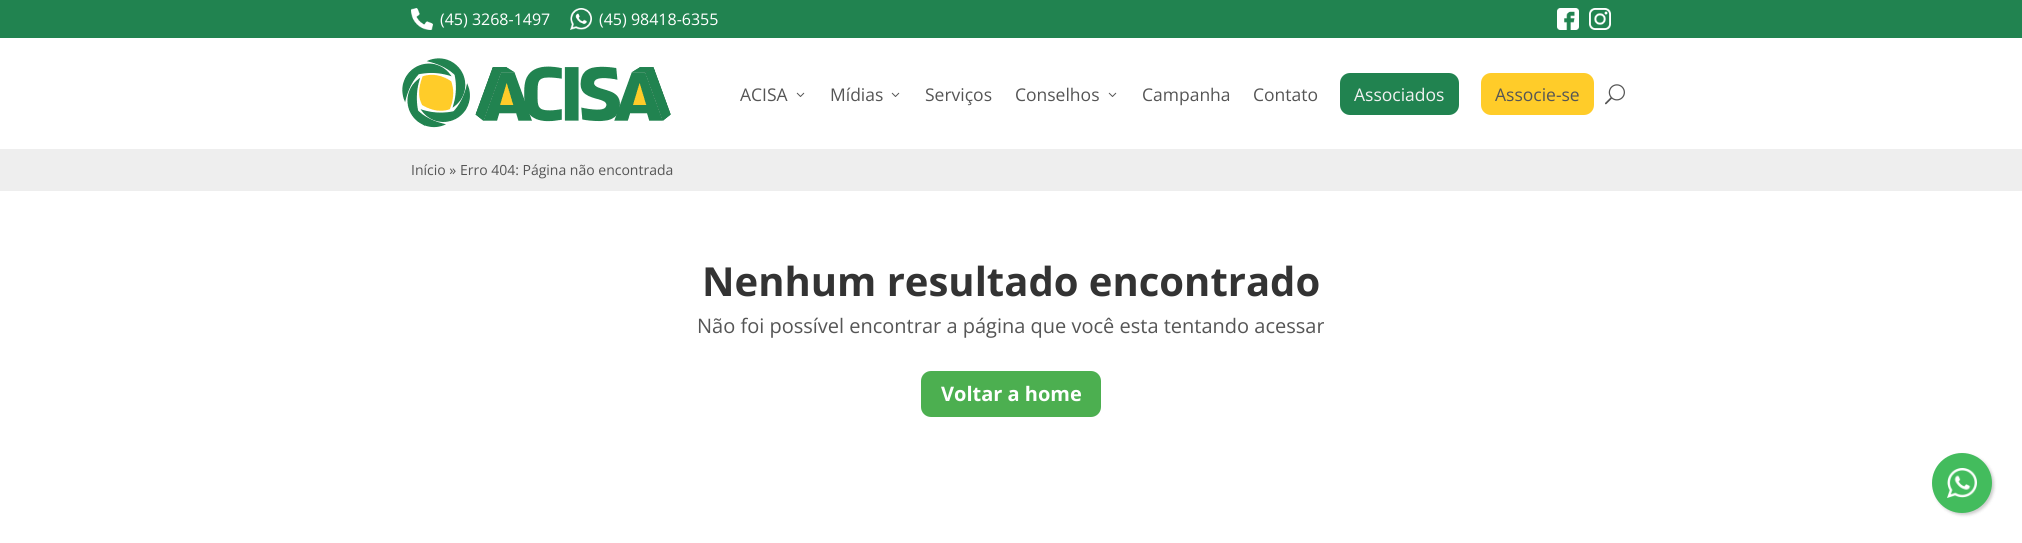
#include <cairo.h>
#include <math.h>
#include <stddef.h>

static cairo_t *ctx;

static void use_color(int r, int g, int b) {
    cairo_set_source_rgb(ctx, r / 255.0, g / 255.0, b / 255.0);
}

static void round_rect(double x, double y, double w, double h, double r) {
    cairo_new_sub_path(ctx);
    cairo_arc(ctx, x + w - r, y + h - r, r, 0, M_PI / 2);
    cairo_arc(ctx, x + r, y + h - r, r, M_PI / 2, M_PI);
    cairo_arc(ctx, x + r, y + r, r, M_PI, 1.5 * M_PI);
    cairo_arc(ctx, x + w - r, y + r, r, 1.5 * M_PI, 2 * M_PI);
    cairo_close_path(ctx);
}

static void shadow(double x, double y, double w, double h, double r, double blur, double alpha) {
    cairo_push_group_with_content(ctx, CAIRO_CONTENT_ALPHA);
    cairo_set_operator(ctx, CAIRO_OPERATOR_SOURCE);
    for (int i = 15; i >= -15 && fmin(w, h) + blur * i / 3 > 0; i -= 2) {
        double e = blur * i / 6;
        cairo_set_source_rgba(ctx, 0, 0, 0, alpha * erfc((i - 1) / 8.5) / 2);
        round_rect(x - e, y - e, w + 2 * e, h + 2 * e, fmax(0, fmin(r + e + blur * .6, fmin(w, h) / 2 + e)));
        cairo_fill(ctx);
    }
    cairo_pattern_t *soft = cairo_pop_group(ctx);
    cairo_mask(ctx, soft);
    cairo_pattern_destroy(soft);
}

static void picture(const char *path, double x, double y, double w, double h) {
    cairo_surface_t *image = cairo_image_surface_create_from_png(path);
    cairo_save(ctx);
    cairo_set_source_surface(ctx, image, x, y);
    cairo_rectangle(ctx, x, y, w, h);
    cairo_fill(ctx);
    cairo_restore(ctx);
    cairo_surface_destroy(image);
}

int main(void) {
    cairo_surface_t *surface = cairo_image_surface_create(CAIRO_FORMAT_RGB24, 2022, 543);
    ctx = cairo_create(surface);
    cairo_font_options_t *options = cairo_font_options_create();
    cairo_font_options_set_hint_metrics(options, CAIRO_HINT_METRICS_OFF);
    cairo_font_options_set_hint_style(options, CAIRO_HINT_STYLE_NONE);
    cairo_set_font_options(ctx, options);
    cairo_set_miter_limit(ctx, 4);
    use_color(255, 255, 255);
    cairo_paint(ctx);
    use_color(33, 131, 80);
    cairo_rectangle(ctx, 0, 0, 2022, 38);
    cairo_fill(ctx);
    picture("img1.png", 411, 8, 22, 22);
    cairo_select_font_face(ctx, "Open Sans", CAIRO_FONT_SLANT_NORMAL, CAIRO_FONT_WEIGHT_NORMAL);
    cairo_set_font_size(ctx, 16);
    use_color(255, 255, 255);
    cairo_move_to(ctx, 440, 25);
    cairo_show_text(ctx, "(45) 3268-1497");
    picture("img2.png", 570, 8, 22, 22);
    cairo_move_to(ctx, 599, 25);
    cairo_show_text(ctx, "(45) 98418-6355");
    picture("img3.png", 1557, 8, 22, 22);
    picture("img4.png", 1589, 8, 22, 22);
    picture("img5.png", 402, 58, 269, 70);
    cairo_set_font_size(ctx, 17.5);
    use_color(85, 85, 85);
    cairo_move_to(ctx, 740, 101);
    cairo_show_text(ctx, "ACISA");
    picture("img6.png", 796, 92, 9, 5);
    cairo_move_to(ctx, 830, 101);
    cairo_show_text(ctx, "Mídias");
    picture("img6.png", 891, 92, 9, 5);
    cairo_move_to(ctx, 925, 101);
    cairo_show_text(ctx, "Serviços");
    cairo_move_to(ctx, 1015, 101);
    cairo_show_text(ctx, "Conselhos");
    picture("img6.png", 1108, 92, 9, 5);
    cairo_move_to(ctx, 1142, 101);
    cairo_show_text(ctx, "Campanha");
    cairo_move_to(ctx, 1253, 101);
    cairo_show_text(ctx, "Contato");
    use_color(33, 131, 80);
    round_rect(1340, 73, 119, 42, 10);
    cairo_fill(ctx);
    use_color(241, 241, 241);
    cairo_move_to(ctx, 1354, 101);
    cairo_show_text(ctx, "Associados");
    use_color(255, 204, 41);
    round_rect(1481, 73, 113, 42, 10);
    cairo_fill(ctx);
    use_color(85, 85, 85);
    cairo_move_to(ctx, 1495, 101);
    cairo_show_text(ctx, "Associe-se");
    picture("img7.png", 1605, 84, 20, 21);
    use_color(238, 238, 238);
    cairo_rectangle(ctx, 0, 149, 2022, 42);
    cairo_fill(ctx);
    cairo_set_font_size(ctx, 14);
    use_color(85, 85, 85);
    cairo_move_to(ctx, 411, 175);
    cairo_show_text(ctx, "Início » Erro 404: Página não encontrada");
    cairo_select_font_face(ctx, "Open Sans", CAIRO_FONT_SLANT_NORMAL, CAIRO_FONT_WEIGHT_BOLD);
    cairo_set_font_size(ctx, 40);
    use_color(51, 51, 51);
    cairo_move_to(ctx, 702, 296);
    cairo_show_text(ctx, "Nenhum resultado encontrado");
    cairo_select_font_face(ctx, "Open Sans", CAIRO_FONT_SLANT_NORMAL, CAIRO_FONT_WEIGHT_NORMAL);
    cairo_set_font_size(ctx, 20);
    use_color(85, 85, 85);
    cairo_move_to(ctx, 697, 333);
    cairo_show_text(ctx, "Não foi possível encontrar a página que você esta tentando acessar");
    use_color(76, 175, 80);
    round_rect(921, 371, 180, 46, 10);
    cairo_fill(ctx);
    cairo_select_font_face(ctx, "Open Sans", CAIRO_FONT_SLANT_NORMAL, CAIRO_FONT_WEIGHT_BOLD);
    use_color(255, 255, 255);
    cairo_move_to(ctx, 941, 401);
    cairo_show_text(ctx, "Voltar a home");
    use_color(0, 0, 0);
    shadow(1934, 455, 60, 60, 30, 1.5, 0.2);
    use_color(67, 188, 93);
    cairo_arc(ctx, 1962, 483, 30, 0, 2 * M_PI);
    cairo_fill(ctx);
    picture("img8.png", 1947, 468, 30, 30);
    cairo_surface_write_to_png(surface, "result.png");
    cairo_font_options_destroy(options);
    cairo_destroy(ctx);
    cairo_surface_destroy(surface);
    return 0;
}
